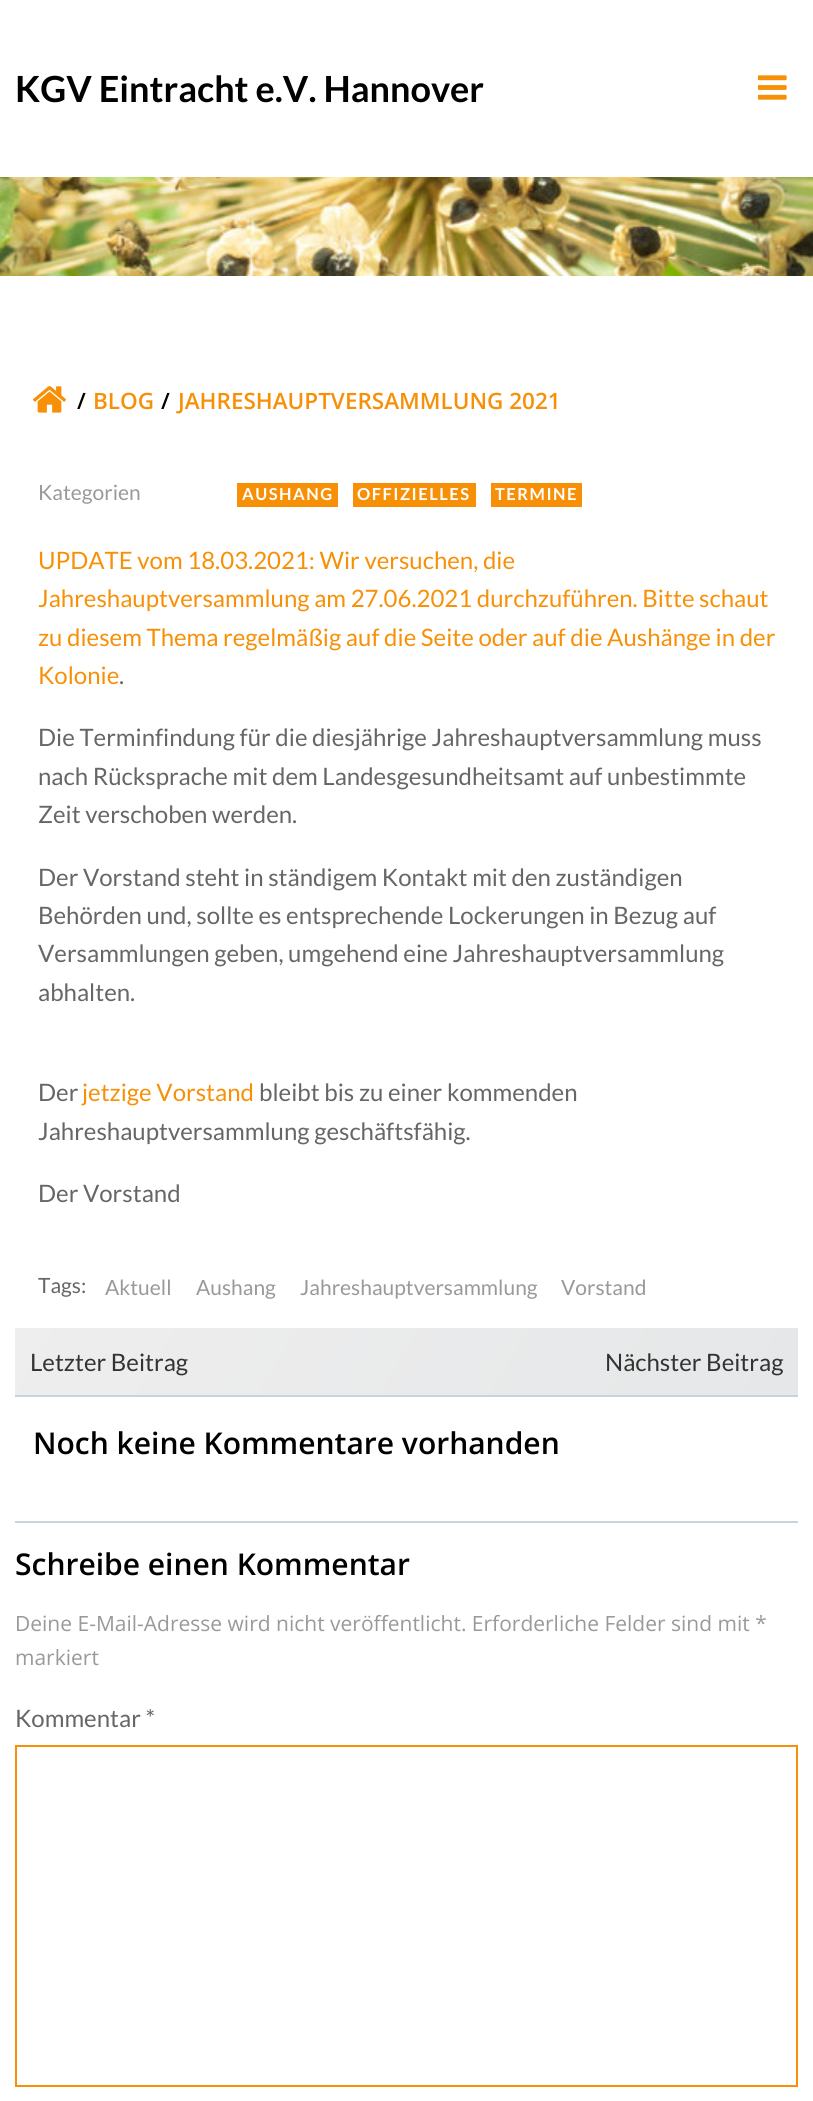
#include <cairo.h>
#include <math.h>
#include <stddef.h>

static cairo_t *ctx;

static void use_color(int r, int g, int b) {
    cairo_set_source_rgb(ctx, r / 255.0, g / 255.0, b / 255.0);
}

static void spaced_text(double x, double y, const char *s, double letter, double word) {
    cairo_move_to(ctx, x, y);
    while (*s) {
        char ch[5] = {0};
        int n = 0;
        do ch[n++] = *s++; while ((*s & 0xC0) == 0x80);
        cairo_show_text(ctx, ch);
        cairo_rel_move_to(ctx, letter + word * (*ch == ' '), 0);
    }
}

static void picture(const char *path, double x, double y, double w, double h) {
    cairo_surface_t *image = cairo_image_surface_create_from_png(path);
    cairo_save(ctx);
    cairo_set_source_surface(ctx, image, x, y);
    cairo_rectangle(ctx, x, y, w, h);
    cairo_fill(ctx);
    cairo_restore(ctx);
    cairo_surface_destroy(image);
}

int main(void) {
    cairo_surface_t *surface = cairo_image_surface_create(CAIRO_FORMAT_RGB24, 813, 2101);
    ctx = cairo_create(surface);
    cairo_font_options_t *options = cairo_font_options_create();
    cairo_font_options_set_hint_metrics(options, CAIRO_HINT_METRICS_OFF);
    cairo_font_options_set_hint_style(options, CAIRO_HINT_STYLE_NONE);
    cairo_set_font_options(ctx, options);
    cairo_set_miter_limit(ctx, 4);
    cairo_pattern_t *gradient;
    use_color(255, 255, 255);
    cairo_paint(ctx);
    cairo_select_font_face(ctx, "Lato", CAIRO_FONT_SLANT_NORMAL, CAIRO_FONT_WEIGHT_BOLD);
    cairo_set_font_size(ctx, 36);
    use_color(0, 0, 0);
    cairo_move_to(ctx, 15, 102);
    cairo_show_text(ctx, "KGV Eintracht e.V. Hannover");
    picture("img1.png", 758, 75, 29, 25);
    picture("img2.png", 0, 177, 813, 99);
    picture("img3.png", 33, 386, 33, 27);
    cairo_select_font_face(ctx, "Open Sans SemiBold", CAIRO_FONT_SLANT_NORMAL, CAIRO_FONT_WEIGHT_NORMAL);
    cairo_set_font_size(ctx, 22.5);
    cairo_move_to(ctx, 77, 409);
    cairo_show_text(ctx, "/");
    use_color(247, 144, 7);
    cairo_move_to(ctx, 93, 409);
    cairo_show_text(ctx, "BLOG");
    use_color(0, 0, 0);
    cairo_move_to(ctx, 161, 409);
    cairo_show_text(ctx, "/");
    use_color(247, 144, 7);
    cairo_move_to(ctx, 178, 409);
    cairo_show_text(ctx, "JAHRESHAUPTVERSAMMLUNG 2021");
    cairo_select_font_face(ctx, "Lato", CAIRO_FONT_SLANT_NORMAL, CAIRO_FONT_WEIGHT_NORMAL);
    cairo_set_font_size(ctx, 21);
    use_color(153, 153, 153);
    cairo_move_to(ctx, 38, 500);
    cairo_show_text(ctx, "Kategorien");
    use_color(247, 144, 7);
    cairo_rectangle(ctx, 237, 483, 101, 24);
    cairo_fill(ctx);
    cairo_select_font_face(ctx, "Lato", CAIRO_FONT_SLANT_NORMAL, CAIRO_FONT_WEIGHT_BOLD);
    cairo_set_font_size(ctx, 16.5);
    use_color(255, 255, 255);
    spaced_text(242, 500, "AUSHANG", 1.5, 0);
    use_color(247, 144, 7);
    cairo_rectangle(ctx, 353, 483, 123, 24);
    cairo_fill(ctx);
    use_color(255, 255, 255);
    spaced_text(357, 500, "OFFIZIELLES", 1.5, 0);
    use_color(247, 144, 7);
    cairo_rectangle(ctx, 491, 483, 91, 24);
    cairo_fill(ctx);
    use_color(255, 255, 255);
    spaced_text(495, 500, "TERMINE", 1.5, 0);
    cairo_select_font_face(ctx, "Lato", CAIRO_FONT_SLANT_NORMAL, CAIRO_FONT_WEIGHT_NORMAL);
    cairo_set_font_size(ctx, 24);
    use_color(247, 144, 7);
    cairo_move_to(ctx, 38, 569);
    cairo_show_text(ctx, "UPDATE vom 18.03.2021: Wir versuchen, die");
    cairo_move_to(ctx, 38, 607);
    cairo_show_text(ctx, "Jahreshauptversammlung am 27.06.2021 durchzuführen. Bitte schaut");
    cairo_move_to(ctx, 38, 646);
    cairo_show_text(ctx, "zu diesem Thema regelmäßig auf die Seite oder auf die Aushänge in der");
    cairo_move_to(ctx, 38, 684);
    cairo_show_text(ctx, "Kolonie");
    use_color(102, 102, 102);
    cairo_move_to(ctx, 119, 684);
    cairo_show_text(ctx, ".");
    cairo_move_to(ctx, 38, 746);
    cairo_show_text(ctx, "Die Terminfindung für die diesjährige Jahreshauptversammlung muss");
    cairo_move_to(ctx, 38, 785);
    cairo_show_text(ctx, "nach Rücksprache mit dem Landesgesundheitsamt auf unbestimmte");
    cairo_move_to(ctx, 38, 823);
    cairo_show_text(ctx, "Zeit verschoben werden.");
    cairo_move_to(ctx, 38, 886);
    cairo_show_text(ctx, "Der Vorstand steht in ständigem Kontakt mit den zuständigen");
    cairo_move_to(ctx, 38, 924);
    cairo_show_text(ctx, "Behörden und, sollte es entsprechende Lockerungen in Bezug auf");
    cairo_move_to(ctx, 38, 962);
    cairo_show_text(ctx, "Versammlungen geben, umgehend eine Jahreshauptversammlung");
    cairo_move_to(ctx, 38, 1001);
    cairo_show_text(ctx, "abhalten.");
    cairo_move_to(ctx, 38, 1101);
    cairo_show_text(ctx, "Der");
    use_color(247, 144, 7);
    cairo_move_to(ctx, 82, 1101);
    cairo_show_text(ctx, "jetzige Vorstand");
    use_color(102, 102, 102);
    cairo_move_to(ctx, 259, 1101);
    cairo_show_text(ctx, "bleibt bis zu einer kommenden");
    cairo_move_to(ctx, 38, 1140);
    cairo_show_text(ctx, "Jahreshauptversammlung geschäftsfähig.");
    cairo_move_to(ctx, 38, 1202);
    cairo_show_text(ctx, "Der Vorstand");
    cairo_set_font_size(ctx, 21);
    cairo_move_to(ctx, 38, 1293);
    cairo_show_text(ctx, "Tags:");
    use_color(153, 153, 153);
    cairo_move_to(ctx, 105, 1295);
    cairo_show_text(ctx, "Aktuell");
    cairo_move_to(ctx, 196, 1295);
    cairo_show_text(ctx, "Aushang");
    cairo_move_to(ctx, 300, 1295);
    cairo_show_text(ctx, "Jahreshauptversammlung");
    cairo_move_to(ctx, 561, 1295);
    cairo_show_text(ctx, "Vorstand");
    use_color(200, 212, 218);
    cairo_rectangle(ctx, 15, 1395, 783, 2);
    cairo_fill(ctx);
    gradient = cairo_pattern_create_linear(-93, 635, 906, 1212);
    cairo_pattern_add_color_stop_rgba(gradient, 0, 0.957, 0.949, 0.949, 1);
    cairo_pattern_add_color_stop_rgba(gradient, 1, 0.898, 0.906, 0.91, 1);
    cairo_set_source(ctx, gradient);
    cairo_pattern_destroy(gradient);
    cairo_rectangle(ctx, 15, 1328, 783, 67);
    cairo_fill(ctx);
    cairo_set_font_size(ctx, 24);
    use_color(51, 51, 51);
    cairo_move_to(ctx, 30, 1371);
    cairo_show_text(ctx, "Letzter Beitrag");
    cairo_move_to(ctx, 605, 1371);
    cairo_show_text(ctx, "Nächster Beitrag");
    cairo_select_font_face(ctx, "Open Sans SemiBold", CAIRO_FONT_SLANT_NORMAL, CAIRO_FONT_WEIGHT_NORMAL);
    cairo_set_font_size(ctx, 30);
    use_color(0, 0, 0);
    cairo_move_to(ctx, 33, 1454);
    cairo_show_text(ctx, "Noch keine Kommentare vorhanden");
    use_color(200, 212, 218);
    cairo_rectangle(ctx, 15, 1521, 783, 2);
    cairo_fill(ctx);
    use_color(0, 0, 0);
    cairo_move_to(ctx, 15, 1575);
    cairo_show_text(ctx, "Schreibe einen Kommentar");
    cairo_select_font_face(ctx, "Open Sans", CAIRO_FONT_SLANT_NORMAL, CAIRO_FONT_WEIGHT_NORMAL);
    cairo_set_font_size(ctx, 21);
    use_color(153, 153, 153);
    cairo_move_to(ctx, 15, 1631);
    cairo_show_text(ctx, "Deine E-Mail-Adresse wird nicht veröffentlicht. Erforderliche Felder sind mit *");
    cairo_move_to(ctx, 15, 1665);
    cairo_show_text(ctx, "markiert");
    cairo_select_font_face(ctx, "Lato", CAIRO_FONT_SLANT_NORMAL, CAIRO_FONT_WEIGHT_NORMAL);
    cairo_set_font_size(ctx, 24);
    use_color(102, 102, 102);
    cairo_move_to(ctx, 15, 1727);
    cairo_show_text(ctx, "Kommentar *");
    cairo_rectangle(ctx, 16, 1746, 781, 340);
    use_color(247, 144, 7);
    cairo_stroke(ctx);
    cairo_surface_write_to_png(surface, "result.png");
    cairo_font_options_destroy(options);
    cairo_destroy(ctx);
    cairo_surface_destroy(surface);
    return 0;
}
